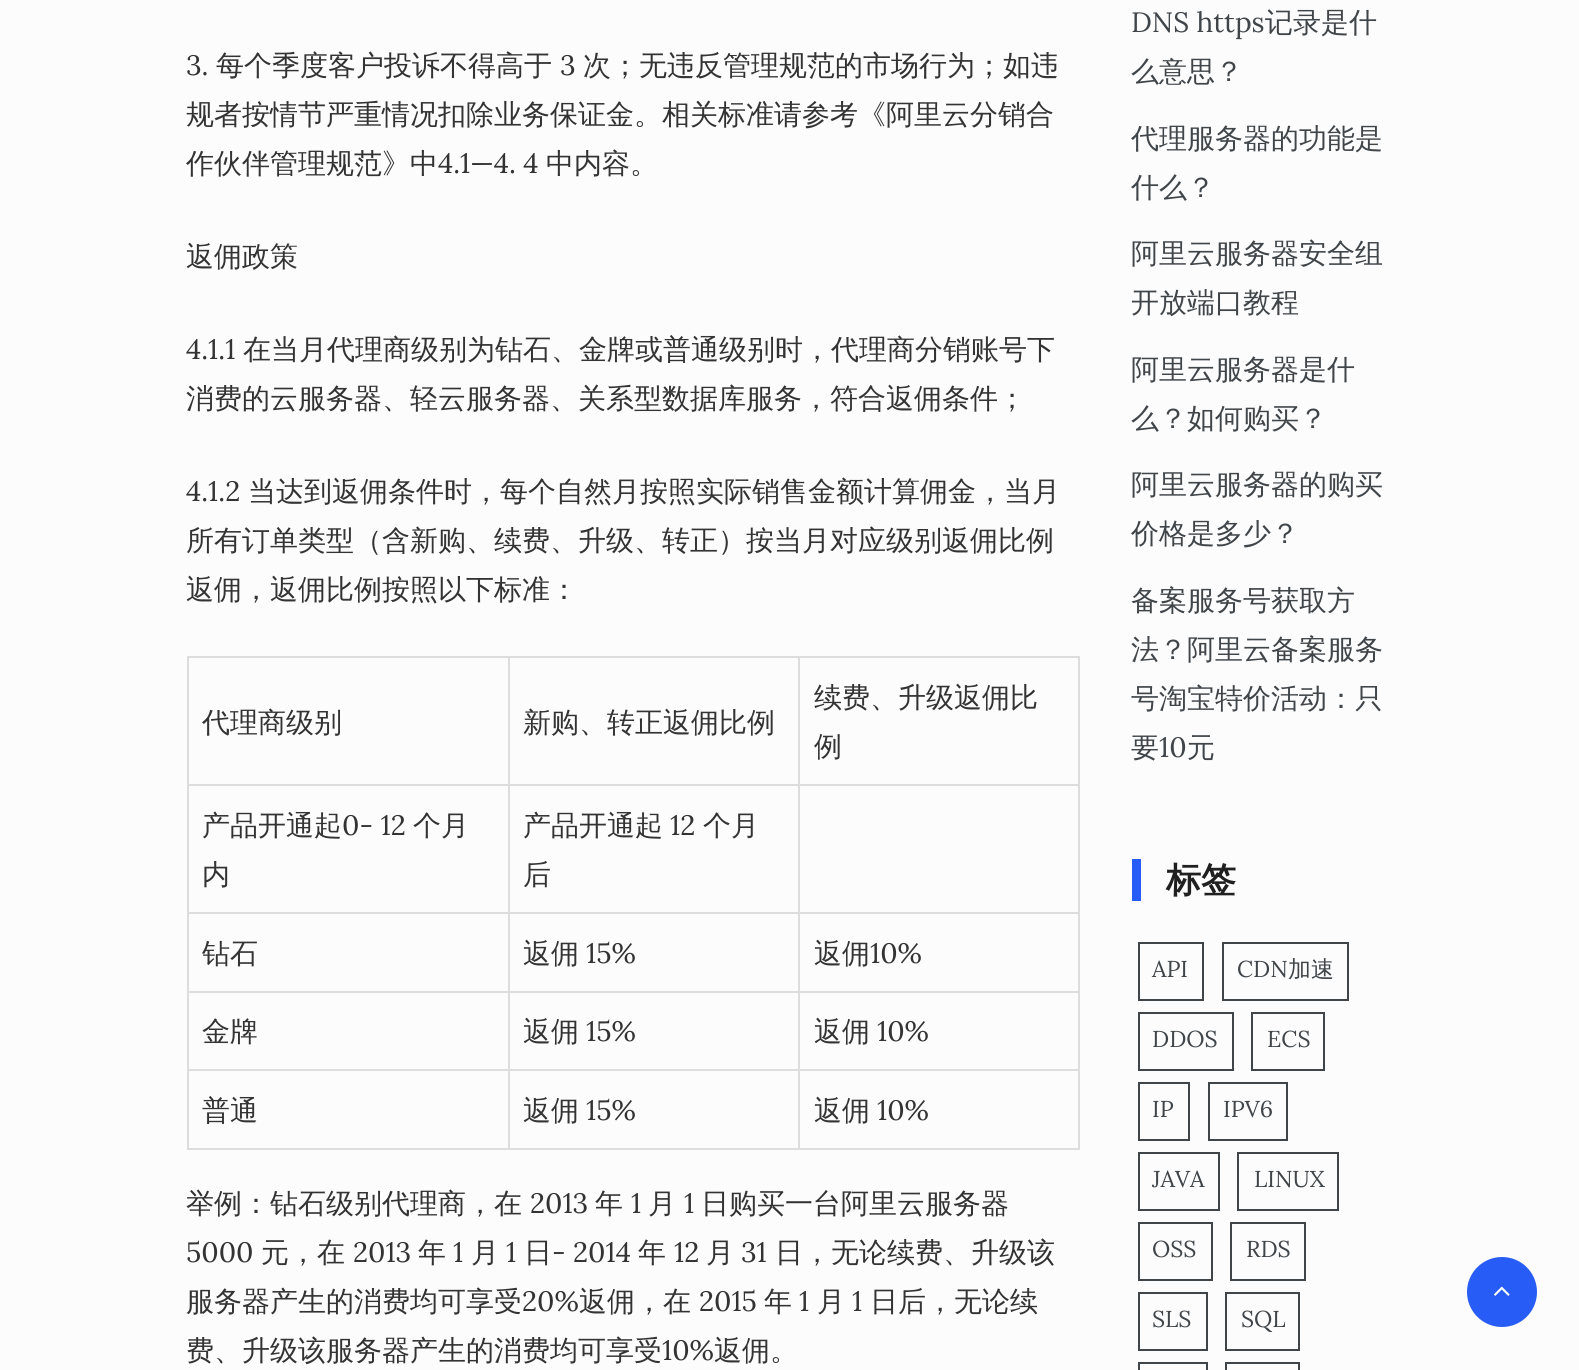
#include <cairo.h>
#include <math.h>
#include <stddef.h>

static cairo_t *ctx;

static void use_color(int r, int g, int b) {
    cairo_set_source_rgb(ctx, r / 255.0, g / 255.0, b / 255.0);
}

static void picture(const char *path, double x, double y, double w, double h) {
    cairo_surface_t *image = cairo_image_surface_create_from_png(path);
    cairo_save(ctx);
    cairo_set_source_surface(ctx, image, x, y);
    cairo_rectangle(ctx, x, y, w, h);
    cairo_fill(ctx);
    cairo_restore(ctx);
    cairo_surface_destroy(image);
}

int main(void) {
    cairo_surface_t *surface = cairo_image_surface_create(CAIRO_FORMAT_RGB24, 1579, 1370);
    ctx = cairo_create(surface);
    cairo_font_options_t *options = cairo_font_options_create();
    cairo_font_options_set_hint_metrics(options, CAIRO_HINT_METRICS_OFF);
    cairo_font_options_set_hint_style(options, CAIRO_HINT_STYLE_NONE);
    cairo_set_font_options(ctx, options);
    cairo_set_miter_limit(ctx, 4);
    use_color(252, 252, 252);
    cairo_paint(ctx);
    cairo_select_font_face(ctx, "Lora", CAIRO_FONT_SLANT_NORMAL, CAIRO_FONT_WEIGHT_NORMAL);
    cairo_set_font_size(ctx, 28);
    use_color(51, 51, 51);
    cairo_move_to(ctx, 186, 75);
    cairo_show_text(ctx, "3.");
    cairo_select_font_face(ctx, "WenQuanYi Zen Hei Medium", CAIRO_FONT_SLANT_NORMAL, CAIRO_FONT_WEIGHT_NORMAL);
    cairo_move_to(ctx, 216, 75);
    cairo_show_text(ctx, "每个季度客户投诉不得高于");
    cairo_select_font_face(ctx, "Lora", CAIRO_FONT_SLANT_NORMAL, CAIRO_FONT_WEIGHT_NORMAL);
    cairo_move_to(ctx, 560, 75);
    cairo_show_text(ctx, "3");
    cairo_select_font_face(ctx, "WenQuanYi Zen Hei Medium", CAIRO_FONT_SLANT_NORMAL, CAIRO_FONT_WEIGHT_NORMAL);
    cairo_move_to(ctx, 583, 75);
    cairo_show_text(ctx, "次；无违反管理规范的市场行为；如违");
    cairo_move_to(ctx, 186, 124);
    cairo_show_text(ctx, "规者按情节严重情况扣除业务保证金。相关标准请参考《阿里云分销合");
    cairo_move_to(ctx, 186, 173);
    cairo_show_text(ctx, "作伙伴管理规范》中");
    cairo_select_font_face(ctx, "Lora", CAIRO_FONT_SLANT_NORMAL, CAIRO_FONT_WEIGHT_NORMAL);
    cairo_move_to(ctx, 438, 173);
    cairo_show_text(ctx, "4.1—4. 4");
    cairo_select_font_face(ctx, "WenQuanYi Zen Hei Medium", CAIRO_FONT_SLANT_NORMAL, CAIRO_FONT_WEIGHT_NORMAL);
    cairo_move_to(ctx, 546, 173);
    cairo_show_text(ctx, "中内容。");
    cairo_move_to(ctx, 186, 266);
    cairo_show_text(ctx, "返佣政策");
    cairo_select_font_face(ctx, "Lora", CAIRO_FONT_SLANT_NORMAL, CAIRO_FONT_WEIGHT_NORMAL);
    cairo_move_to(ctx, 186, 359);
    cairo_show_text(ctx, "4.1.1");
    cairo_select_font_face(ctx, "WenQuanYi Zen Hei Medium", CAIRO_FONT_SLANT_NORMAL, CAIRO_FONT_WEIGHT_NORMAL);
    cairo_move_to(ctx, 243, 359);
    cairo_show_text(ctx, "在当月代理商级别为钻石、金牌或普通级别时，代理商分销账号下");
    cairo_move_to(ctx, 186, 408);
    cairo_show_text(ctx, "消费的云服务器、轻云服务器、关系型数据库服务，符合返佣条件；");
    cairo_select_font_face(ctx, "Lora", CAIRO_FONT_SLANT_NORMAL, CAIRO_FONT_WEIGHT_NORMAL);
    cairo_move_to(ctx, 186, 501);
    cairo_show_text(ctx, "4.1.2");
    cairo_select_font_face(ctx, "WenQuanYi Zen Hei Medium", CAIRO_FONT_SLANT_NORMAL, CAIRO_FONT_WEIGHT_NORMAL);
    cairo_move_to(ctx, 248, 501);
    cairo_show_text(ctx, "当达到返佣条件时，每个自然月按照实际销售金额计算佣金，当月");
    cairo_move_to(ctx, 186, 550);
    cairo_show_text(ctx, "所有订单类型（含新购、续费、升级、转正）按当月对应级别返佣比例");
    cairo_move_to(ctx, 186, 599);
    cairo_show_text(ctx, "返佣，返佣比例按照以下标准：");
    use_color(221, 221, 221);
    cairo_rectangle(ctx, 798, 656, 282, 2);
    cairo_fill(ctx);
    cairo_rectangle(ctx, 798, 784, 282, 2);
    cairo_fill(ctx);
    cairo_rectangle(ctx, 798, 912, 282, 2);
    cairo_fill(ctx);
    cairo_rectangle(ctx, 798, 991, 282, 2);
    cairo_fill(ctx);
    cairo_rectangle(ctx, 798, 1069, 282, 2);
    cairo_fill(ctx);
    cairo_rectangle(ctx, 1078, 1069, 2, 81);
    cairo_fill(ctx);
    cairo_rectangle(ctx, 798, 1148, 282, 2);
    cairo_fill(ctx);
    cairo_rectangle(ctx, 798, 1069, 2, 81);
    cairo_fill(ctx);
    cairo_rectangle(ctx, 508, 1069, 292, 2);
    cairo_fill(ctx);
    cairo_rectangle(ctx, 798, 991, 2, 80);
    cairo_fill(ctx);
    cairo_rectangle(ctx, 508, 991, 292, 2);
    cairo_fill(ctx);
    cairo_rectangle(ctx, 798, 912, 2, 80);
    cairo_fill(ctx);
    cairo_rectangle(ctx, 508, 912, 292, 2);
    cairo_fill(ctx);
    cairo_rectangle(ctx, 798, 784, 2, 130);
    cairo_fill(ctx);
    cairo_rectangle(ctx, 508, 784, 292, 2);
    cairo_fill(ctx);
    cairo_rectangle(ctx, 798, 656, 2, 130);
    cairo_fill(ctx);
    cairo_rectangle(ctx, 508, 656, 292, 2);
    cairo_fill(ctx);
    cairo_rectangle(ctx, 508, 1148, 292, 2);
    cairo_fill(ctx);
    cairo_rectangle(ctx, 508, 1069, 2, 81);
    cairo_fill(ctx);
    cairo_rectangle(ctx, 187, 1069, 322, 2);
    cairo_fill(ctx);
    cairo_rectangle(ctx, 508, 991, 2, 80);
    cairo_fill(ctx);
    cairo_rectangle(ctx, 187, 991, 322, 2);
    cairo_fill(ctx);
    cairo_rectangle(ctx, 508, 912, 2, 80);
    cairo_fill(ctx);
    cairo_rectangle(ctx, 187, 912, 322, 2);
    cairo_fill(ctx);
    cairo_rectangle(ctx, 508, 784, 2, 130);
    cairo_fill(ctx);
    cairo_rectangle(ctx, 187, 784, 322, 2);
    cairo_fill(ctx);
    cairo_rectangle(ctx, 508, 656, 2, 130);
    cairo_fill(ctx);
    cairo_rectangle(ctx, 187, 656, 322, 2);
    cairo_fill(ctx);
    cairo_rectangle(ctx, 187, 1148, 322, 2);
    cairo_fill(ctx);
    cairo_rectangle(ctx, 187, 1069, 2, 81);
    cairo_fill(ctx);
    cairo_rectangle(ctx, 187, 991, 2, 80);
    cairo_fill(ctx);
    cairo_rectangle(ctx, 187, 912, 2, 80);
    cairo_fill(ctx);
    cairo_rectangle(ctx, 187, 784, 2, 130);
    cairo_fill(ctx);
    cairo_rectangle(ctx, 187, 656, 2, 130);
    cairo_fill(ctx);
    use_color(51, 51, 51);
    cairo_move_to(ctx, 202, 732);
    cairo_show_text(ctx, "代理商级别");
    cairo_move_to(ctx, 523, 732);
    cairo_show_text(ctx, "新购、转正返佣比例");
    use_color(221, 221, 221);
    cairo_rectangle(ctx, 1078, 991, 2, 80);
    cairo_fill(ctx);
    cairo_rectangle(ctx, 1078, 912, 2, 80);
    cairo_fill(ctx);
    cairo_rectangle(ctx, 1078, 784, 2, 130);
    cairo_fill(ctx);
    cairo_rectangle(ctx, 1078, 656, 2, 130);
    cairo_fill(ctx);
    use_color(51, 51, 51);
    cairo_move_to(ctx, 814, 707);
    cairo_show_text(ctx, "续费、升级返佣比");
    cairo_move_to(ctx, 814, 756);
    cairo_show_text(ctx, "例");
    cairo_move_to(ctx, 202, 835);
    cairo_show_text(ctx, "产品开通起");
    cairo_select_font_face(ctx, "Lora", CAIRO_FONT_SLANT_NORMAL, CAIRO_FONT_WEIGHT_NORMAL);
    cairo_move_to(ctx, 342, 835);
    cairo_show_text(ctx, "0- 12");
    cairo_select_font_face(ctx, "WenQuanYi Zen Hei Medium", CAIRO_FONT_SLANT_NORMAL, CAIRO_FONT_WEIGHT_NORMAL);
    cairo_move_to(ctx, 413, 835);
    cairo_show_text(ctx, "个月");
    cairo_move_to(ctx, 202, 884);
    cairo_show_text(ctx, "内");
    cairo_move_to(ctx, 523, 835);
    cairo_show_text(ctx, "产品开通起");
    cairo_select_font_face(ctx, "Lora", CAIRO_FONT_SLANT_NORMAL, CAIRO_FONT_WEIGHT_NORMAL);
    cairo_move_to(ctx, 670, 835);
    cairo_show_text(ctx, "12");
    cairo_select_font_face(ctx, "WenQuanYi Zen Hei Medium", CAIRO_FONT_SLANT_NORMAL, CAIRO_FONT_WEIGHT_NORMAL);
    cairo_move_to(ctx, 703, 835);
    cairo_show_text(ctx, "个月");
    cairo_move_to(ctx, 523, 884);
    cairo_show_text(ctx, "后");
    cairo_move_to(ctx, 202, 963);
    cairo_show_text(ctx, "钻石");
    cairo_move_to(ctx, 523, 963);
    cairo_show_text(ctx, "返佣");
    cairo_select_font_face(ctx, "Lora", CAIRO_FONT_SLANT_NORMAL, CAIRO_FONT_WEIGHT_NORMAL);
    cairo_move_to(ctx, 586, 963);
    cairo_show_text(ctx, "15%");
    cairo_select_font_face(ctx, "WenQuanYi Zen Hei Medium", CAIRO_FONT_SLANT_NORMAL, CAIRO_FONT_WEIGHT_NORMAL);
    cairo_move_to(ctx, 814, 963);
    cairo_show_text(ctx, "返佣");
    cairo_select_font_face(ctx, "Lora", CAIRO_FONT_SLANT_NORMAL, CAIRO_FONT_WEIGHT_NORMAL);
    cairo_move_to(ctx, 870, 963);
    cairo_show_text(ctx, "10%");
    cairo_select_font_face(ctx, "WenQuanYi Zen Hei Medium", CAIRO_FONT_SLANT_NORMAL, CAIRO_FONT_WEIGHT_NORMAL);
    cairo_move_to(ctx, 202, 1041);
    cairo_show_text(ctx, "金牌");
    cairo_move_to(ctx, 523, 1041);
    cairo_show_text(ctx, "返佣");
    cairo_select_font_face(ctx, "Lora", CAIRO_FONT_SLANT_NORMAL, CAIRO_FONT_WEIGHT_NORMAL);
    cairo_move_to(ctx, 586, 1041);
    cairo_show_text(ctx, "15%");
    cairo_select_font_face(ctx, "WenQuanYi Zen Hei Medium", CAIRO_FONT_SLANT_NORMAL, CAIRO_FONT_WEIGHT_NORMAL);
    cairo_move_to(ctx, 814, 1041);
    cairo_show_text(ctx, "返佣");
    cairo_select_font_face(ctx, "Lora", CAIRO_FONT_SLANT_NORMAL, CAIRO_FONT_WEIGHT_NORMAL);
    cairo_move_to(ctx, 877, 1041);
    cairo_show_text(ctx, "10%");
    cairo_select_font_face(ctx, "WenQuanYi Zen Hei Medium", CAIRO_FONT_SLANT_NORMAL, CAIRO_FONT_WEIGHT_NORMAL);
    cairo_move_to(ctx, 202, 1120);
    cairo_show_text(ctx, "普通");
    cairo_move_to(ctx, 523, 1120);
    cairo_show_text(ctx, "返佣");
    cairo_select_font_face(ctx, "Lora", CAIRO_FONT_SLANT_NORMAL, CAIRO_FONT_WEIGHT_NORMAL);
    cairo_move_to(ctx, 586, 1120);
    cairo_show_text(ctx, "15%");
    cairo_select_font_face(ctx, "WenQuanYi Zen Hei Medium", CAIRO_FONT_SLANT_NORMAL, CAIRO_FONT_WEIGHT_NORMAL);
    cairo_move_to(ctx, 814, 1120);
    cairo_show_text(ctx, "返佣");
    cairo_select_font_face(ctx, "Lora", CAIRO_FONT_SLANT_NORMAL, CAIRO_FONT_WEIGHT_NORMAL);
    cairo_move_to(ctx, 877, 1120);
    cairo_show_text(ctx, "10%");
    cairo_select_font_face(ctx, "WenQuanYi Zen Hei Medium", CAIRO_FONT_SLANT_NORMAL, CAIRO_FONT_WEIGHT_NORMAL);
    cairo_move_to(ctx, 186, 1213);
    cairo_show_text(ctx, "举例：钻石级别代理商，在");
    cairo_select_font_face(ctx, "Lora", CAIRO_FONT_SLANT_NORMAL, CAIRO_FONT_WEIGHT_NORMAL);
    cairo_move_to(ctx, 530, 1213);
    cairo_show_text(ctx, "2013");
    cairo_select_font_face(ctx, "WenQuanYi Zen Hei Medium", CAIRO_FONT_SLANT_NORMAL, CAIRO_FONT_WEIGHT_NORMAL);
    cairo_move_to(ctx, 595, 1213);
    cairo_show_text(ctx, "年");
    cairo_select_font_face(ctx, "Lora", CAIRO_FONT_SLANT_NORMAL, CAIRO_FONT_WEIGHT_NORMAL);
    cairo_move_to(ctx, 631, 1213);
    cairo_show_text(ctx, "1");
    cairo_select_font_face(ctx, "WenQuanYi Zen Hei Medium", CAIRO_FONT_SLANT_NORMAL, CAIRO_FONT_WEIGHT_NORMAL);
    cairo_move_to(ctx, 648, 1213);
    cairo_show_text(ctx, "月");
    cairo_select_font_face(ctx, "Lora", CAIRO_FONT_SLANT_NORMAL, CAIRO_FONT_WEIGHT_NORMAL);
    cairo_move_to(ctx, 684, 1213);
    cairo_show_text(ctx, "1");
    cairo_select_font_face(ctx, "WenQuanYi Zen Hei Medium", CAIRO_FONT_SLANT_NORMAL, CAIRO_FONT_WEIGHT_NORMAL);
    cairo_move_to(ctx, 701, 1213);
    cairo_show_text(ctx, "日购买一台阿里云服务器");
    cairo_select_font_face(ctx, "Lora", CAIRO_FONT_SLANT_NORMAL, CAIRO_FONT_WEIGHT_NORMAL);
    cairo_move_to(ctx, 186, 1262);
    cairo_show_text(ctx, "5000");
    cairo_select_font_face(ctx, "WenQuanYi Zen Hei Medium", CAIRO_FONT_SLANT_NORMAL, CAIRO_FONT_WEIGHT_NORMAL);
    cairo_move_to(ctx, 261, 1262);
    cairo_show_text(ctx, "元，在");
    cairo_select_font_face(ctx, "Lora", CAIRO_FONT_SLANT_NORMAL, CAIRO_FONT_WEIGHT_NORMAL);
    cairo_move_to(ctx, 353, 1262);
    cairo_show_text(ctx, "2013");
    cairo_select_font_face(ctx, "WenQuanYi Zen Hei Medium", CAIRO_FONT_SLANT_NORMAL, CAIRO_FONT_WEIGHT_NORMAL);
    cairo_move_to(ctx, 418, 1262);
    cairo_show_text(ctx, "年");
    cairo_select_font_face(ctx, "Lora", CAIRO_FONT_SLANT_NORMAL, CAIRO_FONT_WEIGHT_NORMAL);
    cairo_move_to(ctx, 453, 1262);
    cairo_show_text(ctx, "1");
    cairo_select_font_face(ctx, "WenQuanYi Zen Hei Medium", CAIRO_FONT_SLANT_NORMAL, CAIRO_FONT_WEIGHT_NORMAL);
    cairo_move_to(ctx, 471, 1262);
    cairo_show_text(ctx, "月");
    cairo_select_font_face(ctx, "Lora", CAIRO_FONT_SLANT_NORMAL, CAIRO_FONT_WEIGHT_NORMAL);
    cairo_move_to(ctx, 506, 1262);
    cairo_show_text(ctx, "1");
    cairo_select_font_face(ctx, "WenQuanYi Zen Hei Medium", CAIRO_FONT_SLANT_NORMAL, CAIRO_FONT_WEIGHT_NORMAL);
    cairo_move_to(ctx, 524, 1262);
    cairo_show_text(ctx, "日");
    cairo_select_font_face(ctx, "Lora", CAIRO_FONT_SLANT_NORMAL, CAIRO_FONT_WEIGHT_NORMAL);
    cairo_move_to(ctx, 552, 1262);
    cairo_show_text(ctx, "- 2014");
    cairo_select_font_face(ctx, "WenQuanYi Zen Hei Medium", CAIRO_FONT_SLANT_NORMAL, CAIRO_FONT_WEIGHT_NORMAL);
    cairo_move_to(ctx, 638, 1262);
    cairo_show_text(ctx, "年");
    cairo_select_font_face(ctx, "Lora", CAIRO_FONT_SLANT_NORMAL, CAIRO_FONT_WEIGHT_NORMAL);
    cairo_move_to(ctx, 674, 1262);
    cairo_show_text(ctx, "12");
    cairo_select_font_face(ctx, "WenQuanYi Zen Hei Medium", CAIRO_FONT_SLANT_NORMAL, CAIRO_FONT_WEIGHT_NORMAL);
    cairo_move_to(ctx, 706, 1262);
    cairo_show_text(ctx, "月");
    cairo_select_font_face(ctx, "Lora", CAIRO_FONT_SLANT_NORMAL, CAIRO_FONT_WEIGHT_NORMAL);
    cairo_move_to(ctx, 741, 1262);
    cairo_show_text(ctx, "31");
    cairo_select_font_face(ctx, "WenQuanYi Zen Hei Medium", CAIRO_FONT_SLANT_NORMAL, CAIRO_FONT_WEIGHT_NORMAL);
    cairo_move_to(ctx, 775, 1262);
    cairo_show_text(ctx, "日，无论续费、升级该");
    cairo_move_to(ctx, 186, 1311);
    cairo_show_text(ctx, "服务器产生的消费均可享受");
    cairo_select_font_face(ctx, "Lora", CAIRO_FONT_SLANT_NORMAL, CAIRO_FONT_WEIGHT_NORMAL);
    cairo_move_to(ctx, 522, 1311);
    cairo_show_text(ctx, "20%");
    cairo_select_font_face(ctx, "WenQuanYi Zen Hei Medium", CAIRO_FONT_SLANT_NORMAL, CAIRO_FONT_WEIGHT_NORMAL);
    cairo_move_to(ctx, 579, 1311);
    cairo_show_text(ctx, "返佣，在");
    cairo_select_font_face(ctx, "Lora", CAIRO_FONT_SLANT_NORMAL, CAIRO_FONT_WEIGHT_NORMAL);
    cairo_move_to(ctx, 699, 1311);
    cairo_show_text(ctx, "2015");
    cairo_select_font_face(ctx, "WenQuanYi Zen Hei Medium", CAIRO_FONT_SLANT_NORMAL, CAIRO_FONT_WEIGHT_NORMAL);
    cairo_move_to(ctx, 764, 1311);
    cairo_show_text(ctx, "年");
    cairo_select_font_face(ctx, "Lora", CAIRO_FONT_SLANT_NORMAL, CAIRO_FONT_WEIGHT_NORMAL);
    cairo_move_to(ctx, 799, 1311);
    cairo_show_text(ctx, "1");
    cairo_select_font_face(ctx, "WenQuanYi Zen Hei Medium", CAIRO_FONT_SLANT_NORMAL, CAIRO_FONT_WEIGHT_NORMAL);
    cairo_move_to(ctx, 817, 1311);
    cairo_show_text(ctx, "月");
    cairo_select_font_face(ctx, "Lora", CAIRO_FONT_SLANT_NORMAL, CAIRO_FONT_WEIGHT_NORMAL);
    cairo_move_to(ctx, 852, 1311);
    cairo_show_text(ctx, "1");
    cairo_select_font_face(ctx, "WenQuanYi Zen Hei Medium", CAIRO_FONT_SLANT_NORMAL, CAIRO_FONT_WEIGHT_NORMAL);
    cairo_move_to(ctx, 870, 1311);
    cairo_show_text(ctx, "日后，无论续");
    cairo_move_to(ctx, 186, 1360);
    cairo_show_text(ctx, "费、升级该服务器产生的消费均可享受");
    cairo_select_font_face(ctx, "Lora", CAIRO_FONT_SLANT_NORMAL, CAIRO_FONT_WEIGHT_NORMAL);
    cairo_move_to(ctx, 662, 1360);
    cairo_show_text(ctx, "10%");
    cairo_select_font_face(ctx, "WenQuanYi Zen Hei Medium", CAIRO_FONT_SLANT_NORMAL, CAIRO_FONT_WEIGHT_NORMAL);
    cairo_move_to(ctx, 714, 1360);
    cairo_show_text(ctx, "返佣。");
    cairo_select_font_face(ctx, "Lora", CAIRO_FONT_SLANT_NORMAL, CAIRO_FONT_WEIGHT_NORMAL);
    use_color(64, 69, 74);
    cairo_move_to(ctx, 1131, 32);
    cairo_show_text(ctx, "DNS https");
    cairo_select_font_face(ctx, "WenQuanYi Zen Hei Medium", CAIRO_FONT_SLANT_NORMAL, CAIRO_FONT_WEIGHT_NORMAL);
    cairo_move_to(ctx, 1265, 32);
    cairo_show_text(ctx, "记录是什");
    cairo_move_to(ctx, 1131, 81);
    cairo_show_text(ctx, "么意思？");
    cairo_move_to(ctx, 1131, 148);
    cairo_show_text(ctx, "代理服务器的功能是");
    cairo_move_to(ctx, 1131, 197);
    cairo_show_text(ctx, "什么？");
    cairo_move_to(ctx, 1131, 263);
    cairo_show_text(ctx, "阿里云服务器安全组");
    cairo_move_to(ctx, 1131, 312);
    cairo_show_text(ctx, "开放端口教程");
    cairo_move_to(ctx, 1131, 379);
    cairo_show_text(ctx, "阿里云服务器是什");
    cairo_move_to(ctx, 1131, 428);
    cairo_show_text(ctx, "么？如何购买？");
    cairo_move_to(ctx, 1131, 494);
    cairo_show_text(ctx, "阿里云服务器的购买");
    cairo_move_to(ctx, 1131, 543);
    cairo_show_text(ctx, "价格是多少？");
    cairo_move_to(ctx, 1131, 610);
    cairo_show_text(ctx, "备案服务号获取方");
    cairo_move_to(ctx, 1131, 659);
    cairo_show_text(ctx, "法？阿里云备案服务");
    cairo_move_to(ctx, 1131, 708);
    cairo_show_text(ctx, "号淘宝特价活动：只");
    cairo_move_to(ctx, 1131, 757);
    cairo_show_text(ctx, "要");
    cairo_select_font_face(ctx, "Lora", CAIRO_FONT_SLANT_NORMAL, CAIRO_FONT_WEIGHT_NORMAL);
    cairo_move_to(ctx, 1159, 757);
    cairo_show_text(ctx, "10");
    cairo_select_font_face(ctx, "WenQuanYi Zen Hei Medium", CAIRO_FONT_SLANT_NORMAL, CAIRO_FONT_WEIGHT_NORMAL);
    cairo_move_to(ctx, 1187, 757);
    cairo_show_text(ctx, "元");
    use_color(39, 92, 246);
    cairo_rectangle(ctx, 1132, 859, 9, 42);
    cairo_fill(ctx);
    cairo_select_font_face(ctx, "WenQuanYi Zen Hei", CAIRO_FONT_SLANT_NORMAL, CAIRO_FONT_WEIGHT_BOLD);
    cairo_set_font_size(ctx, 35);
    use_color(32, 32, 32);
    cairo_move_to(ctx, 1166, 892);
    cairo_show_text(ctx, "标签");
    cairo_rectangle(ctx, 1139, 943, 64, 57);
    use_color(64, 69, 74);
    cairo_stroke(ctx);
    cairo_select_font_face(ctx, "Lora", CAIRO_FONT_SLANT_NORMAL, CAIRO_FONT_WEIGHT_NORMAL);
    cairo_set_font_size(ctx, 23);
    cairo_move_to(ctx, 1152, 977);
    cairo_show_text(ctx, "API");
    cairo_rectangle(ctx, 1223, 943, 125, 57);
    cairo_stroke(ctx);
    cairo_move_to(ctx, 1237, 977);
    cairo_show_text(ctx, "CDN");
    cairo_select_font_face(ctx, "WenQuanYi Zen Hei Medium", CAIRO_FONT_SLANT_NORMAL, CAIRO_FONT_WEIGHT_NORMAL);
    cairo_move_to(ctx, 1288, 977);
    cairo_show_text(ctx, "加速");
    cairo_rectangle(ctx, 1139, 1013, 94, 57);
    cairo_stroke(ctx);
    cairo_select_font_face(ctx, "Lora", CAIRO_FONT_SLANT_NORMAL, CAIRO_FONT_WEIGHT_NORMAL);
    cairo_move_to(ctx, 1152, 1047);
    cairo_show_text(ctx, "DDOS");
    cairo_rectangle(ctx, 1252, 1013, 72, 57);
    cairo_stroke(ctx);
    cairo_move_to(ctx, 1267, 1047);
    cairo_show_text(ctx, "ECS");
    cairo_rectangle(ctx, 1139, 1083, 50, 57);
    cairo_stroke(ctx);
    cairo_move_to(ctx, 1152, 1117);
    cairo_show_text(ctx, "IP");
    cairo_rectangle(ctx, 1209, 1083, 78, 57);
    cairo_stroke(ctx);
    cairo_move_to(ctx, 1223, 1117);
    cairo_show_text(ctx, "IPV6");
    cairo_rectangle(ctx, 1139, 1153, 80, 57);
    cairo_stroke(ctx);
    cairo_move_to(ctx, 1152, 1187);
    cairo_show_text(ctx, "JAVA");
    cairo_rectangle(ctx, 1238, 1153, 100, 57);
    cairo_stroke(ctx);
    cairo_move_to(ctx, 1254, 1187);
    cairo_show_text(ctx, "LINUX");
    cairo_rectangle(ctx, 1139, 1223, 73, 57);
    cairo_stroke(ctx);
    cairo_move_to(ctx, 1152, 1257);
    cairo_show_text(ctx, "OSS");
    cairo_rectangle(ctx, 1231, 1223, 74, 57);
    cairo_stroke(ctx);
    cairo_move_to(ctx, 1246, 1257);
    cairo_show_text(ctx, "RDS");
    cairo_rectangle(ctx, 1139, 1293, 68, 57);
    cairo_stroke(ctx);
    cairo_move_to(ctx, 1152, 1327);
    cairo_show_text(ctx, "SLS");
    cairo_rectangle(ctx, 1226, 1293, 73, 57);
    cairo_stroke(ctx);
    cairo_move_to(ctx, 1241, 1327);
    cairo_show_text(ctx, "SQL");
    cairo_rectangle(ctx, 1139, 1363, 68, 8);
    cairo_stroke(ctx);
    cairo_rectangle(ctx, 1226, 1363, 73, 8);
    cairo_stroke(ctx);
    use_color(39, 92, 246);
    cairo_arc(ctx, 1502, 1292, 35, 0, 2 * M_PI);
    cairo_fill(ctx);
    picture("img1.png", 1494, 1286, 16, 10);
    cairo_surface_write_to_png(surface, "result.png");
    cairo_font_options_destroy(options);
    cairo_destroy(ctx);
    cairo_surface_destroy(surface);
    return 0;
}
